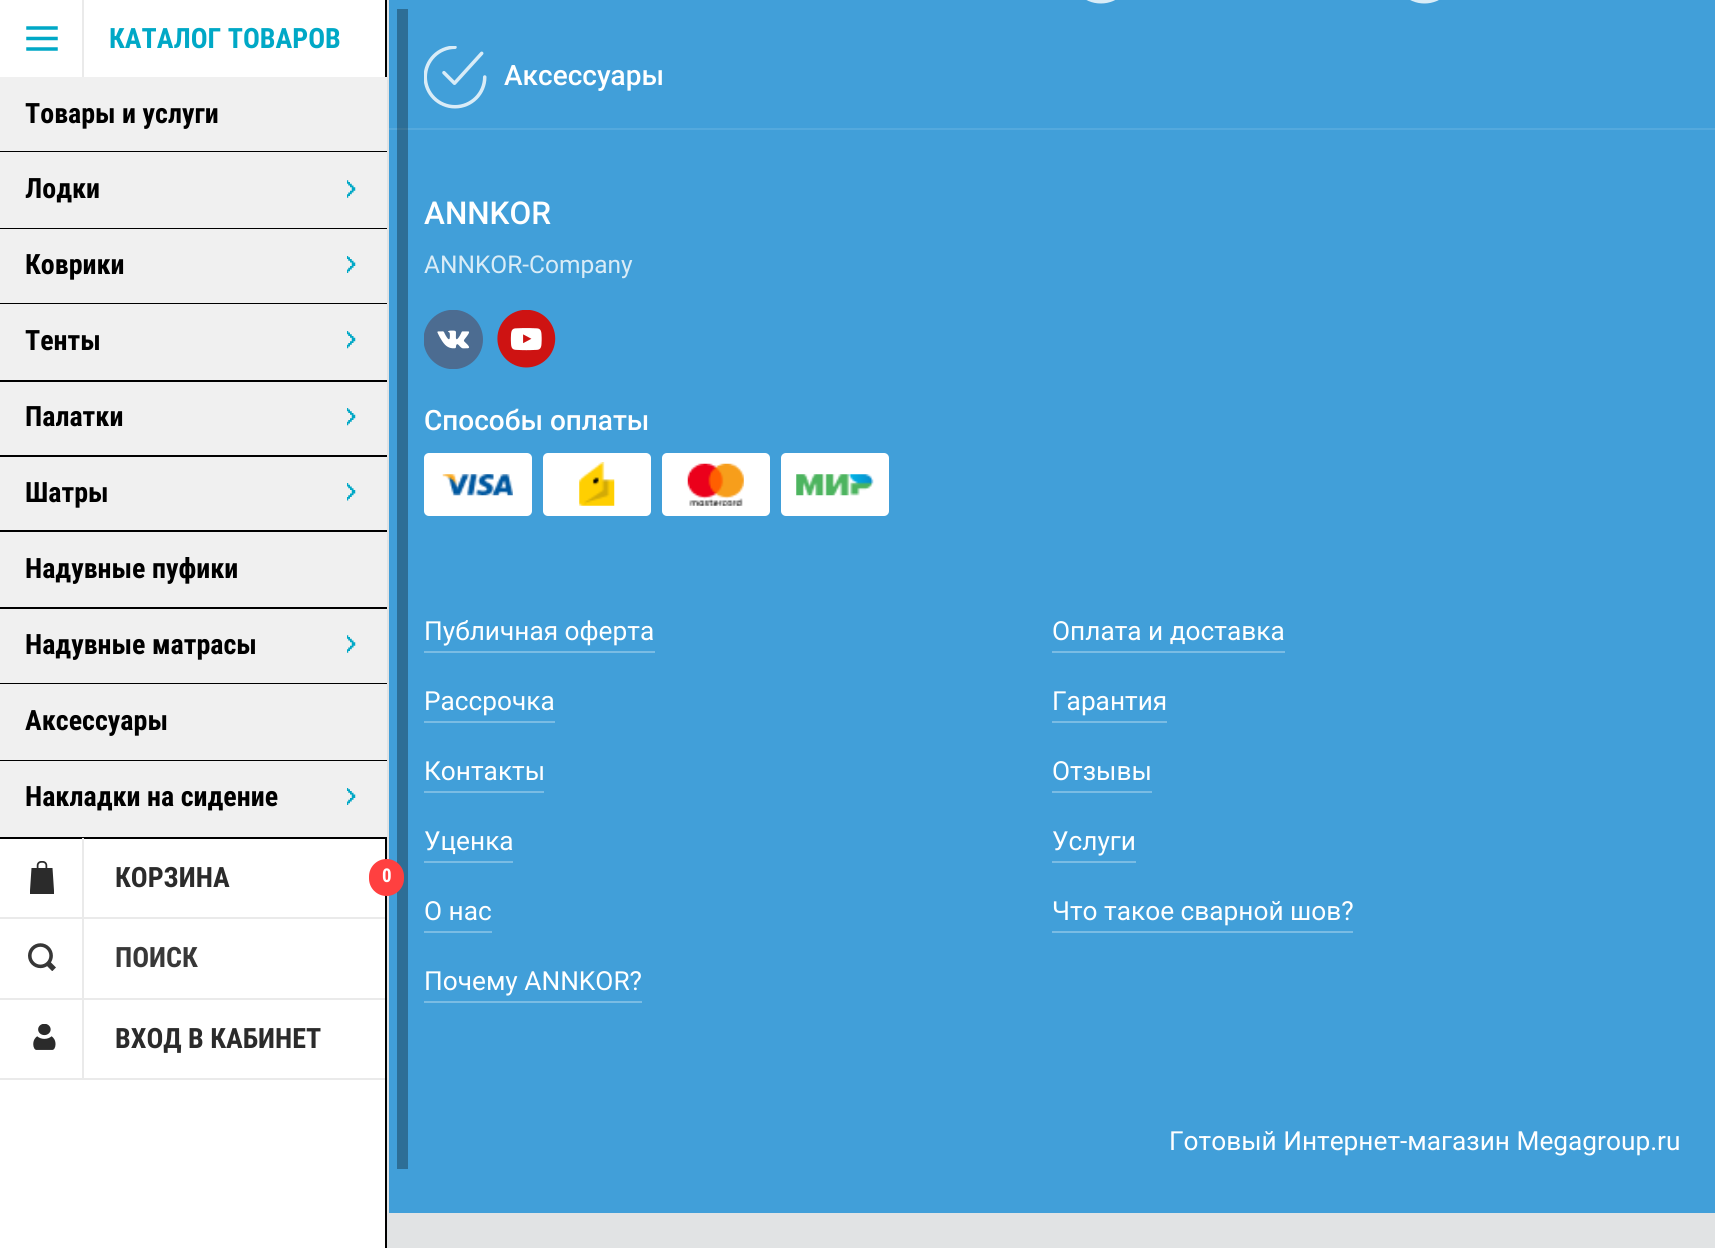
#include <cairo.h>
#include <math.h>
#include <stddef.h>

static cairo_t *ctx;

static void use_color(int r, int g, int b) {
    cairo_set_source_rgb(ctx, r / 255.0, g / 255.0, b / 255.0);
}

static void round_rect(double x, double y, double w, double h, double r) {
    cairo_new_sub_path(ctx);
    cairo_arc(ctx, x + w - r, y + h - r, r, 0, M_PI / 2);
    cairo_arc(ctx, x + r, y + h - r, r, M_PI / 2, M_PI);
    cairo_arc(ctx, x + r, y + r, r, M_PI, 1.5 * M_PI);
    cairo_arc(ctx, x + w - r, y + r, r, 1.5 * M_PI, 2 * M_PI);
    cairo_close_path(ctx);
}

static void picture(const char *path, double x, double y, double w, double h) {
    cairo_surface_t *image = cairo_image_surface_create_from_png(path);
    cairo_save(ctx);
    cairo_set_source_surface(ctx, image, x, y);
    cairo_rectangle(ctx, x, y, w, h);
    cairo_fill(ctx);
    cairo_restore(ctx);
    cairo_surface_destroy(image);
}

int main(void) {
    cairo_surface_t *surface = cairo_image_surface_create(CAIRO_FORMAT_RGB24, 1715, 1248);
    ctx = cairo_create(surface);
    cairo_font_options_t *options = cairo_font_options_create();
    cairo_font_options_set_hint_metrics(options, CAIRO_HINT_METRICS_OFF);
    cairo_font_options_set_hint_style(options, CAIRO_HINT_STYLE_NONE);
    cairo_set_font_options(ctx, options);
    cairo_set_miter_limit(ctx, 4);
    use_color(225, 227, 228);
    cairo_paint(ctx);
    use_color(255, 255, 255);
    cairo_rectangle(ctx, 0, 0, 385, 1248);
    cairo_fill(ctx);
    use_color(0, 0, 0);
    cairo_rectangle(ctx, 385, 0, 2, 1248);
    cairo_fill(ctx);
    cairo_rectangle(ctx, 0, 837, 387, 2);
    cairo_fill(ctx);
    picture("img1.png", 26, 26, 32, 25);
    use_color(234, 234, 234);
    cairo_rectangle(ctx, 82, 0, 2, 77);
    cairo_fill(ctx);
    cairo_select_font_face(ctx, "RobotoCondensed", CAIRO_FONT_SLANT_NORMAL, CAIRO_FONT_WEIGHT_BOLD);
    cairo_set_font_size(ctx, 28);
    use_color(0, 168, 198);
    cairo_move_to(ctx, 109, 48);
    cairo_show_text(ctx, "КАТАЛОГ ТОВАРОВ");
    use_color(240, 240, 240);
    cairo_rectangle(ctx, 0, 77, 387, 760);
    cairo_fill(ctx);
    use_color(0, 0, 0);
    cairo_move_to(ctx, 25, 123);
    cairo_show_text(ctx, "Товары и услуги");
    cairo_new_path(ctx);
    cairo_move_to(ctx, 0, 151);
    cairo_line_to(ctx, 0, 152);
    cairo_line_to(ctx, 387, 152);
    cairo_line_to(ctx, 387, 228);
    cairo_line_to(ctx, 387, 151);
    cairo_close_path(ctx);
    cairo_fill(ctx);
    cairo_move_to(ctx, 25, 198);
    cairo_show_text(ctx, "Лодки");
    picture("img2.png", 347, 180, 9, 18);
    cairo_new_path(ctx);
    cairo_move_to(ctx, 0, 228);
    cairo_line_to(ctx, 0, 229);
    cairo_line_to(ctx, 387, 229);
    cairo_line_to(ctx, 387, 303);
    cairo_line_to(ctx, 387, 228);
    cairo_close_path(ctx);
    cairo_fill(ctx);
    cairo_move_to(ctx, 25, 274);
    cairo_show_text(ctx, "Коврики");
    picture("img3.png", 347, 256, 9, 17);
    cairo_new_path(ctx);
    cairo_move_to(ctx, 0, 303);
    cairo_line_to(ctx, 0, 304);
    cairo_line_to(ctx, 387, 304);
    cairo_line_to(ctx, 387, 380);
    cairo_line_to(ctx, 387, 303);
    cairo_close_path(ctx);
    cairo_fill(ctx);
    cairo_move_to(ctx, 25, 350);
    cairo_show_text(ctx, "Тенты");
    picture("img4.png", 347, 331, 9, 18);
    cairo_new_path(ctx);
    cairo_move_to(ctx, 0, 380);
    cairo_line_to(ctx, 0, 382);
    cairo_line_to(ctx, 387, 382);
    cairo_line_to(ctx, 387, 455);
    cairo_line_to(ctx, 387, 380);
    cairo_close_path(ctx);
    cairo_fill(ctx);
    cairo_move_to(ctx, 25, 426);
    cairo_show_text(ctx, "Палатки");
    picture("img4.png", 347, 408, 9, 18);
    cairo_new_path(ctx);
    cairo_move_to(ctx, 0, 455);
    cairo_line_to(ctx, 0, 457);
    cairo_line_to(ctx, 387, 457);
    cairo_line_to(ctx, 387, 530);
    cairo_line_to(ctx, 387, 455);
    cairo_close_path(ctx);
    cairo_fill(ctx);
    cairo_move_to(ctx, 25, 502);
    cairo_show_text(ctx, "Шатры");
    picture("img5.png", 347, 483, 9, 18);
    cairo_new_path(ctx);
    cairo_move_to(ctx, 0, 530);
    cairo_line_to(ctx, 0, 532);
    cairo_line_to(ctx, 387, 532);
    cairo_line_to(ctx, 387, 607);
    cairo_line_to(ctx, 387, 530);
    cairo_close_path(ctx);
    cairo_fill(ctx);
    cairo_move_to(ctx, 25, 578);
    cairo_show_text(ctx, "Надувные пуфики");
    cairo_new_path(ctx);
    cairo_move_to(ctx, 0, 607);
    cairo_line_to(ctx, 0, 609);
    cairo_line_to(ctx, 387, 609);
    cairo_line_to(ctx, 387, 683);
    cairo_line_to(ctx, 387, 607);
    cairo_close_path(ctx);
    cairo_fill(ctx);
    cairo_move_to(ctx, 25, 654);
    cairo_show_text(ctx, "Надувные матрасы");
    picture("img2.png", 347, 635, 9, 18);
    cairo_new_path(ctx);
    cairo_move_to(ctx, 0, 683);
    cairo_line_to(ctx, 0, 684);
    cairo_line_to(ctx, 387, 684);
    cairo_line_to(ctx, 387, 760);
    cairo_line_to(ctx, 387, 683);
    cairo_close_path(ctx);
    cairo_fill(ctx);
    cairo_move_to(ctx, 25, 730);
    cairo_show_text(ctx, "Аксессуары");
    cairo_new_path(ctx);
    cairo_move_to(ctx, 0, 760);
    cairo_line_to(ctx, 0, 761);
    cairo_line_to(ctx, 387, 761);
    cairo_line_to(ctx, 387, 835);
    cairo_line_to(ctx, 387, 760);
    cairo_close_path(ctx);
    cairo_fill(ctx);
    cairo_move_to(ctx, 25, 806);
    cairo_show_text(ctx, "Накладки на сидение");
    picture("img3.png", 347, 788, 9, 17);
    use_color(234, 234, 234);
    cairo_rectangle(ctx, 0, 917, 385, 2);
    cairo_fill(ctx);
    picture("img6.png", 30, 861, 24, 33);
    cairo_rectangle(ctx, 82, 838, 2, 79);
    cairo_fill(ctx);
    use_color(43, 43, 43);
    cairo_move_to(ctx, 115, 887);
    cairo_show_text(ctx, "КОРЗИНА");
    use_color(65, 159, 217);
    cairo_rectangle(ctx, 389, 130, 1326, 1083);
    cairo_fill(ctx);
    use_color(45, 110, 150);
    cairo_rectangle(ctx, 397, 130, 11, 1039);
    cairo_fill(ctx);
    use_color(255, 64, 64);
    round_rect(369, 859, 35, 37, 17.5);
    cairo_fill(ctx);
    cairo_set_font_size(ctx, 19);
    use_color(255, 255, 255);
    cairo_move_to(ctx, 382, 882);
    cairo_show_text(ctx, "0");
    use_color(234, 234, 234);
    cairo_rectangle(ctx, 0, 998, 385, 2);
    cairo_fill(ctx);
    picture("img7.png", 28, 943, 28, 28);
    cairo_rectangle(ctx, 82, 919, 2, 79);
    cairo_fill(ctx);
    cairo_set_font_size(ctx, 28);
    use_color(56, 56, 56);
    cairo_move_to(ctx, 115, 967);
    cairo_show_text(ctx, "ПОИСК");
    use_color(234, 234, 234);
    cairo_rectangle(ctx, 0, 1078, 385, 2);
    cairo_fill(ctx);
    picture("img8.png", 33, 1024, 23, 26);
    cairo_rectangle(ctx, 82, 999, 2, 79);
    cairo_fill(ctx);
    use_color(43, 43, 43);
    cairo_move_to(ctx, 115, 1048);
    cairo_show_text(ctx, "ВХОД В КАБИНЕТ");
    use_color(65, 159, 217);
    cairo_rectangle(ctx, 389, 0, 1326, 128);
    cairo_fill(ctx);
    use_color(45, 110, 150);
    cairo_rectangle(ctx, 397, 9, 11, 119);
    cairo_fill(ctx);
    picture("img9.png", 1086, 0, 29, 4);
    picture("img10.png", 1410, 0, 29, 4);
    picture("img11.png", 424, 46, 63, 63);
    cairo_select_font_face(ctx, "Roboto Medium", CAIRO_FONT_SLANT_NORMAL, CAIRO_FONT_WEIGHT_NORMAL);
    use_color(255, 255, 255);
    cairo_move_to(ctx, 504, 85);
    cairo_show_text(ctx, "Аксессуары");
    use_color(84, 169, 221);
    cairo_rectangle(ctx, 389, 128, 1326, 2);
    cairo_fill(ctx);
    use_color(58, 117, 152);
    cairo_rectangle(ctx, 397, 128, 11, 2);
    cairo_fill(ctx);
    cairo_set_font_size(ctx, 31.5);
    use_color(255, 255, 255);
    cairo_move_to(ctx, 424, 224);
    cairo_show_text(ctx, "ANNKOR");
    cairo_select_font_face(ctx, "Roboto", CAIRO_FONT_SLANT_NORMAL, CAIRO_FONT_WEIGHT_NORMAL);
    cairo_set_font_size(ctx, 24.5);
    use_color(217, 236, 247);
    cairo_move_to(ctx, 424, 273);
    cairo_show_text(ctx, "ANNKOR-Company");
    picture("img12.png", 424, 310, 59, 59);
    picture("img13.png", 497, 310, 59, 58);
    cairo_select_font_face(ctx, "Roboto Medium", CAIRO_FONT_SLANT_NORMAL, CAIRO_FONT_WEIGHT_NORMAL);
    cairo_set_font_size(ctx, 28);
    use_color(255, 255, 255);
    cairo_move_to(ctx, 424, 430);
    cairo_show_text(ctx, "Способы оплаты");
    round_rect(424, 453, 108, 63, 5);
    cairo_fill(ctx);
    picture("img14.png", 442, 474, 71, 22);
    round_rect(543, 453, 108, 63, 5);
    cairo_fill(ctx);
    picture("img15.png", 579, 462, 36, 44);
    round_rect(662, 453, 108, 63, 5);
    cairo_fill(ctx);
    picture("img16.png", 687, 463, 57, 43);
    round_rect(781, 453, 108, 63, 5);
    cairo_fill(ctx);
    picture("img17.png", 796, 474, 78, 22);
    cairo_select_font_face(ctx, "Roboto", CAIRO_FONT_SLANT_NORMAL, CAIRO_FONT_WEIGHT_NORMAL);
    cairo_set_font_size(ctx, 26.25);
    cairo_move_to(ctx, 424, 640);
    cairo_show_text(ctx, "Публичная оферта");
    use_color(122, 188, 228);
    cairo_rectangle(ctx, 424, 651, 231, 2);
    cairo_fill(ctx);
    use_color(255, 255, 255);
    cairo_move_to(ctx, 1052, 640);
    cairo_show_text(ctx, "Оплата и доставка");
    use_color(122, 188, 228);
    cairo_rectangle(ctx, 1052, 651, 233, 2);
    cairo_fill(ctx);
    use_color(255, 255, 255);
    cairo_move_to(ctx, 424, 710);
    cairo_show_text(ctx, "Рассрочка");
    use_color(122, 188, 228);
    cairo_rectangle(ctx, 424, 721, 131, 2);
    cairo_fill(ctx);
    use_color(255, 255, 255);
    cairo_move_to(ctx, 1052, 710);
    cairo_show_text(ctx, "Гарантия");
    use_color(122, 188, 228);
    cairo_rectangle(ctx, 1052, 721, 115, 2);
    cairo_fill(ctx);
    use_color(255, 255, 255);
    cairo_move_to(ctx, 424, 780);
    cairo_show_text(ctx, "Контакты");
    use_color(122, 188, 228);
    cairo_rectangle(ctx, 424, 791, 120, 2);
    cairo_fill(ctx);
    use_color(255, 255, 255);
    cairo_move_to(ctx, 1052, 780);
    cairo_show_text(ctx, "Отзывы");
    use_color(122, 188, 228);
    cairo_rectangle(ctx, 1052, 791, 100, 2);
    cairo_fill(ctx);
    use_color(255, 255, 255);
    cairo_move_to(ctx, 424, 850);
    cairo_show_text(ctx, "Уценка");
    use_color(122, 188, 228);
    cairo_rectangle(ctx, 424, 861, 89, 2);
    cairo_fill(ctx);
    use_color(255, 255, 255);
    cairo_move_to(ctx, 1052, 850);
    cairo_show_text(ctx, "Услуги");
    use_color(122, 188, 228);
    cairo_rectangle(ctx, 1052, 861, 84, 2);
    cairo_fill(ctx);
    use_color(255, 255, 255);
    cairo_move_to(ctx, 424, 920);
    cairo_show_text(ctx, "О нас");
    use_color(122, 188, 228);
    cairo_rectangle(ctx, 424, 931, 68, 2);
    cairo_fill(ctx);
    use_color(255, 255, 255);
    cairo_move_to(ctx, 1052, 920);
    cairo_show_text(ctx, "Что такое сварной шов?");
    use_color(122, 188, 228);
    cairo_rectangle(ctx, 1052, 931, 301, 2);
    cairo_fill(ctx);
    use_color(255, 255, 255);
    cairo_move_to(ctx, 424, 990);
    cairo_show_text(ctx, "Почему ANNKOR?");
    use_color(122, 188, 228);
    cairo_rectangle(ctx, 424, 1001, 218, 2);
    cairo_fill(ctx);
    use_color(255, 255, 255);
    cairo_move_to(ctx, 1169, 1150);
    cairo_show_text(ctx, "Готовый Интернет-магазин Megagroup.ru");
    cairo_surface_write_to_png(surface, "result.png");
    cairo_font_options_destroy(options);
    cairo_destroy(ctx);
    cairo_surface_destroy(surface);
    return 0;
}
